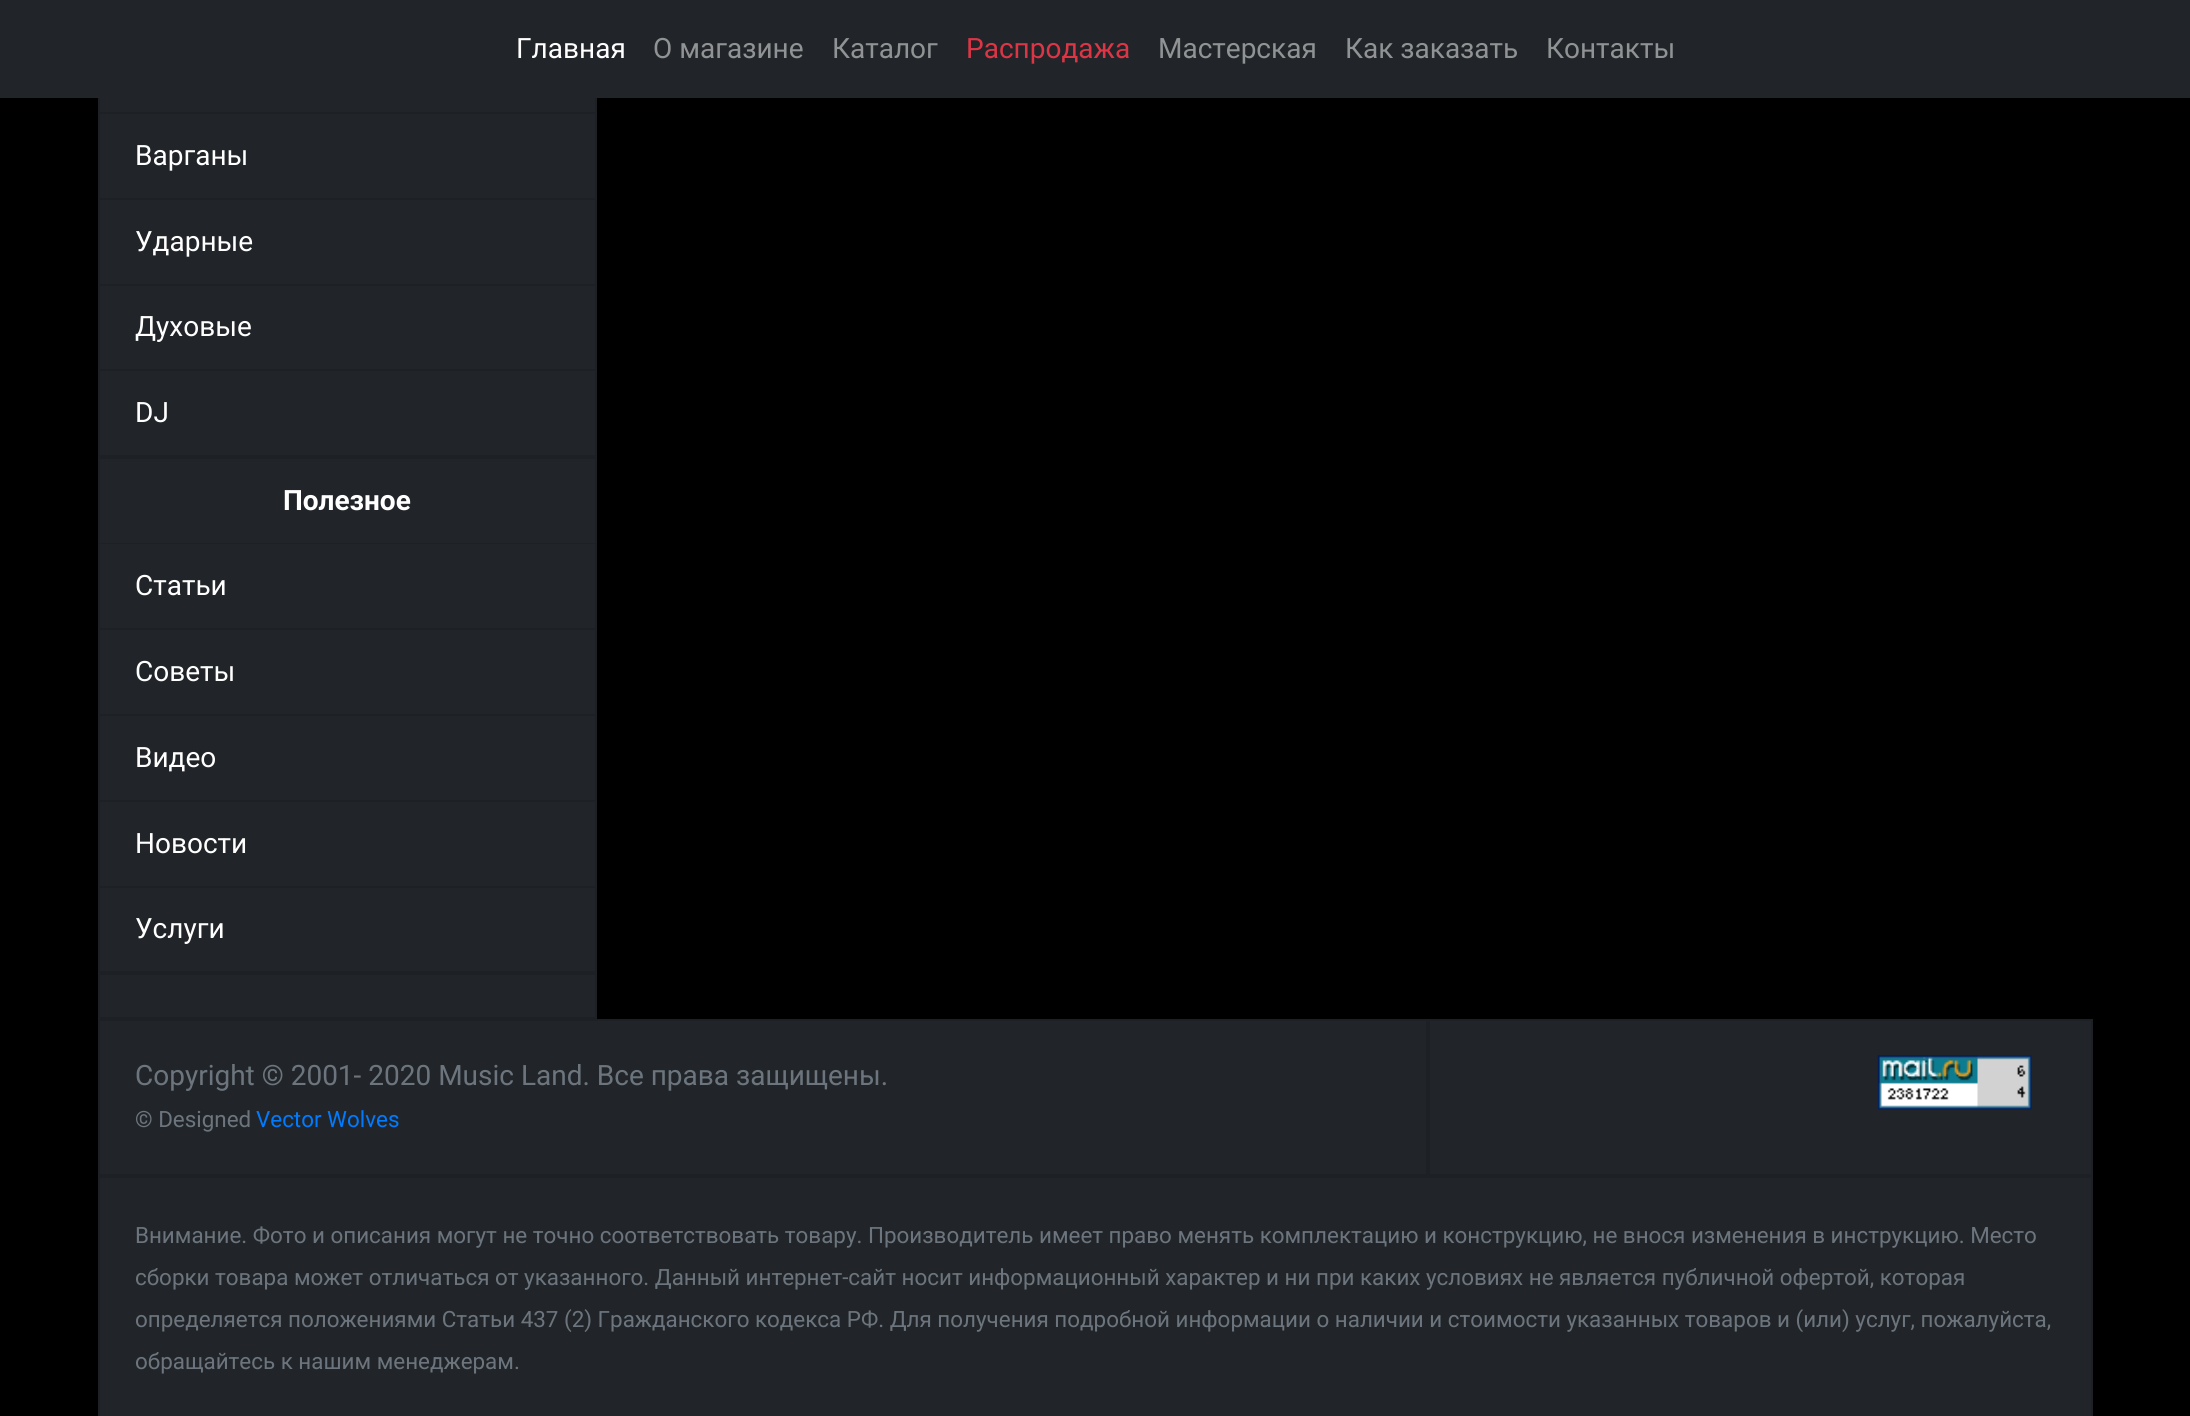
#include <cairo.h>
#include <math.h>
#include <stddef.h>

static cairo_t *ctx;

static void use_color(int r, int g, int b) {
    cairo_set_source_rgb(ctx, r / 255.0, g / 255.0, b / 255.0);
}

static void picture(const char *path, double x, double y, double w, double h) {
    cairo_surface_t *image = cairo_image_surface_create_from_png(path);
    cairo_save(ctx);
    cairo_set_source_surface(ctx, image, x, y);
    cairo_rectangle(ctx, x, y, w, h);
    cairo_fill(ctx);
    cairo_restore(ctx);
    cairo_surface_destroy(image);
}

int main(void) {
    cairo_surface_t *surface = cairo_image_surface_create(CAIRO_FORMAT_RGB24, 2190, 1416);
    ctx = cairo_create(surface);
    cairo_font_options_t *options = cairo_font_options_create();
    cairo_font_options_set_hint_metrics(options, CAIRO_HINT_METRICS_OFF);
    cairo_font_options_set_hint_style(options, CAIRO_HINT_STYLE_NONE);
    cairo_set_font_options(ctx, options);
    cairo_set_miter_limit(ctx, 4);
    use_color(0, 0, 0);
    cairo_paint(ctx);
    cairo_rectangle(ctx, 99, -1, 497, 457);
    use_color(29, 32, 36);
    cairo_stroke(ctx);
    use_color(33, 37, 41);
    cairo_rectangle(ctx, 0, 0, 2190, 98);
    cairo_fill(ctx);
    cairo_select_font_face(ctx, "Roboto", CAIRO_FONT_SLANT_NORMAL, CAIRO_FONT_WEIGHT_NORMAL);
    cairo_set_font_size(ctx, 28);
    use_color(255, 255, 255);
    cairo_move_to(ctx, 516, 58);
    cairo_show_text(ctx, "Главная");
    use_color(144, 146, 148);
    cairo_move_to(ctx, 653, 58);
    cairo_show_text(ctx, "О магазине");
    cairo_move_to(ctx, 832, 58);
    cairo_show_text(ctx, "Каталог");
    use_color(220, 53, 69);
    cairo_move_to(ctx, 966, 58);
    cairo_show_text(ctx, "Распродажа");
    use_color(144, 146, 148);
    cairo_move_to(ctx, 1158, 58);
    cairo_show_text(ctx, "Мастерская");
    cairo_move_to(ctx, 1345, 58);
    cairo_show_text(ctx, "Как заказать");
    cairo_move_to(ctx, 1546, 58);
    cairo_show_text(ctx, "Контакты");
    use_color(33, 37, 41);
    cairo_rectangle(ctx, 100, 459, 495, 558);
    cairo_fill(ctx);
    cairo_rectangle(ctx, 100, 98, 495, 14);
    cairo_fill(ctx);
    cairo_rectangle(ctx, 100, 114, 495, 84);
    cairo_fill(ctx);
    use_color(29, 32, 36);
    cairo_rectangle(ctx, 100, 112, 495, 2);
    cairo_fill(ctx);
    use_color(255, 255, 255);
    cairo_move_to(ctx, 135, 165);
    cairo_show_text(ctx, "Варганы");
    use_color(33, 37, 41);
    cairo_rectangle(ctx, 100, 200, 495, 84);
    cairo_fill(ctx);
    use_color(29, 32, 36);
    cairo_rectangle(ctx, 100, 198, 495, 2);
    cairo_fill(ctx);
    use_color(255, 255, 255);
    cairo_move_to(ctx, 135, 251);
    cairo_show_text(ctx, "Ударные");
    use_color(33, 37, 41);
    cairo_rectangle(ctx, 100, 286, 495, 83);
    cairo_fill(ctx);
    use_color(29, 32, 36);
    cairo_rectangle(ctx, 100, 284, 495, 2);
    cairo_fill(ctx);
    use_color(255, 255, 255);
    cairo_move_to(ctx, 135, 336);
    cairo_show_text(ctx, "Духовые");
    use_color(33, 37, 41);
    cairo_rectangle(ctx, 100, 371, 495, 84);
    cairo_fill(ctx);
    use_color(29, 32, 36);
    cairo_rectangle(ctx, 100, 369, 495, 2);
    cairo_fill(ctx);
    use_color(255, 255, 255);
    cairo_move_to(ctx, 135, 422);
    cairo_show_text(ctx, "DJ");
    cairo_rectangle(ctx, 99, 458, 497, 514);
    use_color(29, 32, 36);
    cairo_stroke(ctx);
    cairo_rectangle(ctx, 100, 543, 495, 1);
    cairo_fill(ctx);
    cairo_select_font_face(ctx, "Roboto", CAIRO_FONT_SLANT_NORMAL, CAIRO_FONT_WEIGHT_BOLD);
    use_color(255, 255, 255);
    cairo_move_to(ctx, 283, 510);
    cairo_show_text(ctx, "Полезное");
    cairo_select_font_face(ctx, "Roboto", CAIRO_FONT_SLANT_NORMAL, CAIRO_FONT_WEIGHT_NORMAL);
    cairo_move_to(ctx, 135, 595);
    cairo_show_text(ctx, "Статьи");
    use_color(29, 32, 36);
    cairo_rectangle(ctx, 100, 628, 495, 2);
    cairo_fill(ctx);
    use_color(255, 255, 255);
    cairo_move_to(ctx, 135, 681);
    cairo_show_text(ctx, "Советы");
    use_color(29, 32, 36);
    cairo_rectangle(ctx, 100, 714, 495, 2);
    cairo_fill(ctx);
    use_color(255, 255, 255);
    cairo_move_to(ctx, 135, 767);
    cairo_show_text(ctx, "Видео");
    use_color(29, 32, 36);
    cairo_rectangle(ctx, 100, 800, 495, 2);
    cairo_fill(ctx);
    use_color(255, 255, 255);
    cairo_move_to(ctx, 135, 853);
    cairo_show_text(ctx, "Новости");
    use_color(29, 32, 36);
    cairo_rectangle(ctx, 100, 886, 495, 2);
    cairo_fill(ctx);
    use_color(255, 255, 255);
    cairo_move_to(ctx, 135, 938);
    cairo_show_text(ctx, "Услуги");
    cairo_rectangle(ctx, 99, 974, 497, 44);
    use_color(29, 32, 36);
    cairo_stroke(ctx);
    use_color(33, 37, 41);
    cairo_rectangle(ctx, 100, 1021, 1991, 395);
    cairo_fill(ctx);
    cairo_rectangle(ctx, 99, 1020, 1328, 155);
    use_color(29, 32, 36);
    cairo_stroke(ctx);
    use_color(108, 117, 125);
    cairo_move_to(ctx, 135, 1085);
    cairo_show_text(ctx, "Copyright © 2001- 2020 Music Land. Все права защищены.");
    cairo_set_font_size(ctx, 22.4);
    cairo_move_to(ctx, 135, 1127);
    cairo_show_text(ctx, "© Designed");
    use_color(0, 123, 255);
    cairo_move_to(ctx, 256, 1127);
    cairo_show_text(ctx, "Vector Wolves");
    cairo_rectangle(ctx, 1429, 1020, 663, 155);
    use_color(29, 32, 36);
    cairo_stroke(ctx);
    picture("img1.png", 1877, 1055, 155, 55);
    cairo_rectangle(ctx, 99, 1177, 1993, 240);
    cairo_stroke(ctx);
    use_color(108, 117, 125);
    cairo_move_to(ctx, 135, 1243);
    cairo_show_text(ctx, "Внимание. Фото и описания могут не точно соответствовать товару. Производитель имеет право менять комплектацию и конструкцию, не внося изменения в инструкцию. Место");
    cairo_move_to(ctx, 135, 1285);
    cairo_show_text(ctx, "сборки товара может отличаться от указанного. Данный интернет-сайт носит информационный характер и ни при каких условиях не является публичной офертой, которая");
    cairo_move_to(ctx, 135, 1327);
    cairo_show_text(ctx, "определяется положениями Статьи 437 (2) Гражданского кодекса РФ. Для получения подробной информации о наличии и стоимости указанных товаров и (или) услуг, пожалуйста,");
    cairo_move_to(ctx, 135, 1369);
    cairo_show_text(ctx, "обращайтесь к нашим менеджерам.");
    cairo_surface_write_to_png(surface, "result.png");
    cairo_font_options_destroy(options);
    cairo_destroy(ctx);
    cairo_surface_destroy(surface);
    return 0;
}
